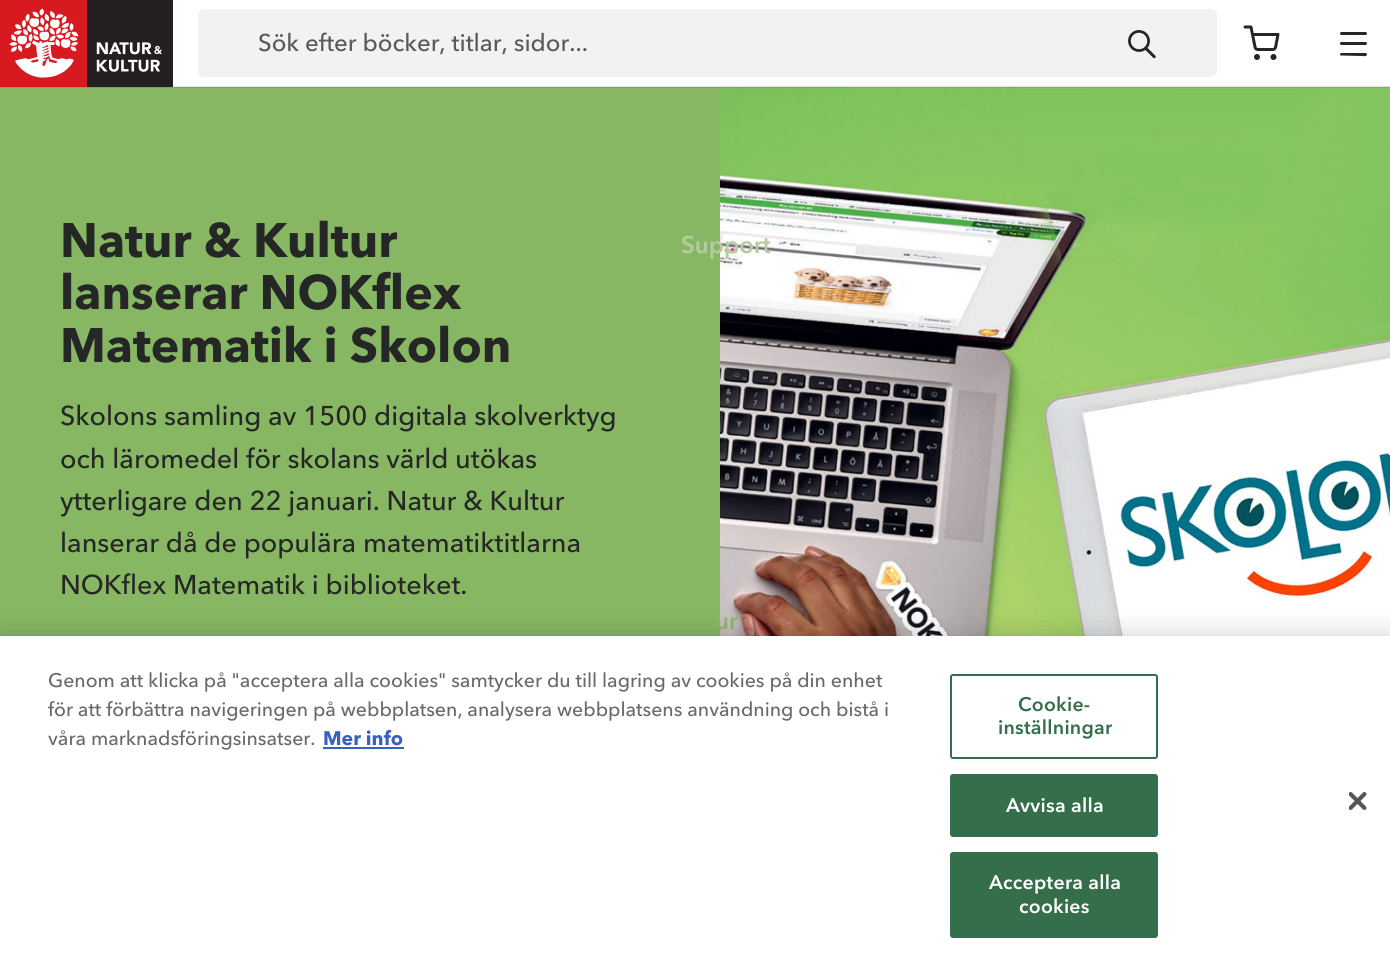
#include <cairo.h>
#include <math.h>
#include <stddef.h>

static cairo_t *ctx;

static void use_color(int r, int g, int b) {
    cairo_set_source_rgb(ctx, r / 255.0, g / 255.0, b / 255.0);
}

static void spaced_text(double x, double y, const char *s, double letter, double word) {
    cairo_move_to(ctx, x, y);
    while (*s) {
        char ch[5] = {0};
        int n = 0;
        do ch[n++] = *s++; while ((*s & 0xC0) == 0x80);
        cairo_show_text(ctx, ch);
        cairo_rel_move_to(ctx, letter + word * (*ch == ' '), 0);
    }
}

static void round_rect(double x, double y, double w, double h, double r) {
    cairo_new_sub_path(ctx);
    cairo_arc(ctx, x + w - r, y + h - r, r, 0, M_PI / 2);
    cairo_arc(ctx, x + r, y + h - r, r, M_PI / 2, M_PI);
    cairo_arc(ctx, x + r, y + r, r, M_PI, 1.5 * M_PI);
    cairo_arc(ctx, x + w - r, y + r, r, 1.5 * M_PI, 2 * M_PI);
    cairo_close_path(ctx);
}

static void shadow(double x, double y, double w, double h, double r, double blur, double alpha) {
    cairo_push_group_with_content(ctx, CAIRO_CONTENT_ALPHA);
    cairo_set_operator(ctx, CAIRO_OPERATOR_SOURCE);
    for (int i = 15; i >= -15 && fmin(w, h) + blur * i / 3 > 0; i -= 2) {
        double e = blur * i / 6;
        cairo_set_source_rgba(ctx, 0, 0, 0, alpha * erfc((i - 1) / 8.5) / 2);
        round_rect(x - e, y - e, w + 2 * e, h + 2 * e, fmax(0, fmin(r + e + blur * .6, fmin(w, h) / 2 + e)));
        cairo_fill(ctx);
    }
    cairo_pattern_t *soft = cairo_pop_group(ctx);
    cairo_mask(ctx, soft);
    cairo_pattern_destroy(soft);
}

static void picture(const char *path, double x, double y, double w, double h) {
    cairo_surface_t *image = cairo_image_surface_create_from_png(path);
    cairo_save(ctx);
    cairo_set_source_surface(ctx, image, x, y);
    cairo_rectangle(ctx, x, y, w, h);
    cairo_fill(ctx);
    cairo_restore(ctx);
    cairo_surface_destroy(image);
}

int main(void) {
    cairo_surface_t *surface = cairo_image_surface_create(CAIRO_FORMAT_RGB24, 1390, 967);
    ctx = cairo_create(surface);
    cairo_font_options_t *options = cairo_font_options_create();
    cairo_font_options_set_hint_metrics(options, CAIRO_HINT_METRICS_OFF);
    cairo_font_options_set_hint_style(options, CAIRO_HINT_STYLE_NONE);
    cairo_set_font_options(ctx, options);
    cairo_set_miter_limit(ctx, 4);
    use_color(255, 255, 255);
    cairo_paint(ctx);
    use_color(136, 183, 99);
    cairo_rectangle(ctx, 0, 87, 720, 549);
    cairo_fill(ctx);
    picture("img4.png", 720, 87, 670, 549);
    cairo_set_source_rgba(ctx, 0, 0, 0, 0.1);
    cairo_rectangle(ctx, 0, 86, 1390, 2);
    cairo_fill(ctx);
    picture("img1.png", 0, 0, 173, 87);
    use_color(242, 242, 242);
    round_rect(198, 9, 1019, 68, 6);
    cairo_fill(ctx);
    cairo_select_font_face(ctx, "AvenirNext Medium", CAIRO_FONT_SLANT_NORMAL, CAIRO_FONT_WEIGHT_NORMAL);
    cairo_set_font_size(ctx, 24);
    use_color(88, 89, 89);
    cairo_move_to(ctx, 258, 51);
    cairo_show_text(ctx, "Sök efter böcker, titlar, sidor...");
    picture("img2.png", 1128, 30, 28, 29);
    picture("img3.png", 1243, 25, 37, 35);
    use_color(37, 38, 38);
    round_rect(1340, 32, 27, 3, 1.5);
    cairo_fill(ctx);
    round_rect(1340, 42, 27, 3, 1.5);
    cairo_fill(ctx);
    cairo_new_path(ctx);
    cairo_move_to(ctx, 1341.5, 53);
    cairo_line_to(ctx, 1366, 53);
    cairo_line_to(ctx, 1367, 54);
    cairo_curve_to(ctx, 1367.5, 57, 1362.5, 56, 1362, 56);
    cairo_line_to(ctx, 1340.5, 55.5);
    cairo_curve_to(ctx, 1339.5, 55, 1340, 53, 1341.5, 53);
    cairo_close_path(ctx);
    cairo_fill(ctx);
    cairo_select_font_face(ctx, "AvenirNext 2", CAIRO_FONT_SLANT_NORMAL, CAIRO_FONT_WEIGHT_BOLD);
    use_color(182, 203, 162);
    cairo_move_to(ctx, 681, 253);
    cairo_show_text(ctx, "Support");
    use_color(142, 184, 108);
    cairo_move_to(ctx, 715, 629);
    cairo_show_text(ctx, "ur");
    cairo_select_font_face(ctx, "AvenirNext", CAIRO_FONT_SLANT_NORMAL, CAIRO_FONT_WEIGHT_BOLD);
    cairo_set_font_size(ctx, 48);
    use_color(37, 38, 38);
    cairo_move_to(ctx, 60, 257);
    cairo_show_text(ctx, "Natur & Kultur");
    cairo_move_to(ctx, 60, 309);
    cairo_show_text(ctx, "lanserar NOKflex");
    cairo_move_to(ctx, 60, 362);
    cairo_show_text(ctx, "Matematik i Skolon");
    cairo_select_font_face(ctx, "AvenirNext Medium", CAIRO_FONT_SLANT_NORMAL, CAIRO_FONT_WEIGHT_NORMAL);
    cairo_set_font_size(ctx, 27);
    cairo_move_to(ctx, 60, 425);
    cairo_show_text(ctx, "Skolons samling av 1500 digitala skolverktyg");
    cairo_move_to(ctx, 60, 468);
    cairo_show_text(ctx, "och läromedel för skolans värld utökas");
    cairo_move_to(ctx, 60, 510);
    cairo_show_text(ctx, "ytterligare den 22 januari. Natur & Kultur");
    cairo_move_to(ctx, 60, 552);
    cairo_show_text(ctx, "lanserar då de populära matematiktitlarna");
    cairo_move_to(ctx, 60, 594);
    cairo_show_text(ctx, "NOKflex Matematik i biblioteket.");
    use_color(0, 0, 0);
    shadow(0, 636, 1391, 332, 0, 13.5, 0.2);
    use_color(255, 255, 255);
    cairo_rectangle(ctx, 0, 636, 1390, 331);
    cairo_fill(ctx);
    cairo_set_font_size(ctx, 19.5);
    use_color(105, 105, 105);
    cairo_move_to(ctx, 48, 687);
    cairo_show_text(ctx, "Genom att klicka på \"acceptera alla cookies\" samtycker du till lagring av cookies på din enhet");
    cairo_move_to(ctx, 48, 716);
    cairo_show_text(ctx, "för att förbättra navigeringen på webbplatsen, analysera webbplatsens användning och bistå i");
    cairo_move_to(ctx, 48, 745);
    cairo_show_text(ctx, "våra marknadsföringsinsatser.");
    cairo_select_font_face(ctx, "AvenirNext", CAIRO_FONT_SLANT_NORMAL, CAIRO_FONT_WEIGHT_BOLD);
    use_color(56, 96, 190);
    cairo_move_to(ctx, 323, 745);
    cairo_show_text(ctx, "Mer info");
    cairo_rectangle(ctx, 323, 747, 81, 2);
    cairo_fill(ctx);
    round_rect(951, 675, 206, 83, 2);
    use_color(52, 110, 74);
    cairo_stroke(ctx);
    cairo_select_font_face(ctx, "AvenirNext 2", CAIRO_FONT_SLANT_NORMAL, CAIRO_FONT_WEIGHT_BOLD);
    spaced_text(1018, 711, "Cookie-", 0.25, 0);
    spaced_text(998, 734, "inställningar", 0.25, 0);
    round_rect(951, 775, 206, 61, 2);
    cairo_fill_preserve(ctx);
    cairo_stroke(ctx);
    use_color(255, 255, 255);
    spaced_text(1006, 812, "Avvisa alla", 0.25, 0);
    use_color(52, 110, 74);
    round_rect(951, 853, 206, 84, 2);
    cairo_fill_preserve(ctx);
    cairo_stroke(ctx);
    use_color(255, 255, 255);
    spaced_text(989, 889, "Acceptera alla", 0.25, 0);
    spaced_text(1019, 913, "cookies", 0.25, 0);
    picture("img5.png", 1349, 792, 18, 18);
    cairo_surface_write_to_png(surface, "result.png");
    cairo_font_options_destroy(options);
    cairo_destroy(ctx);
    cairo_surface_destroy(surface);
    return 0;
}
